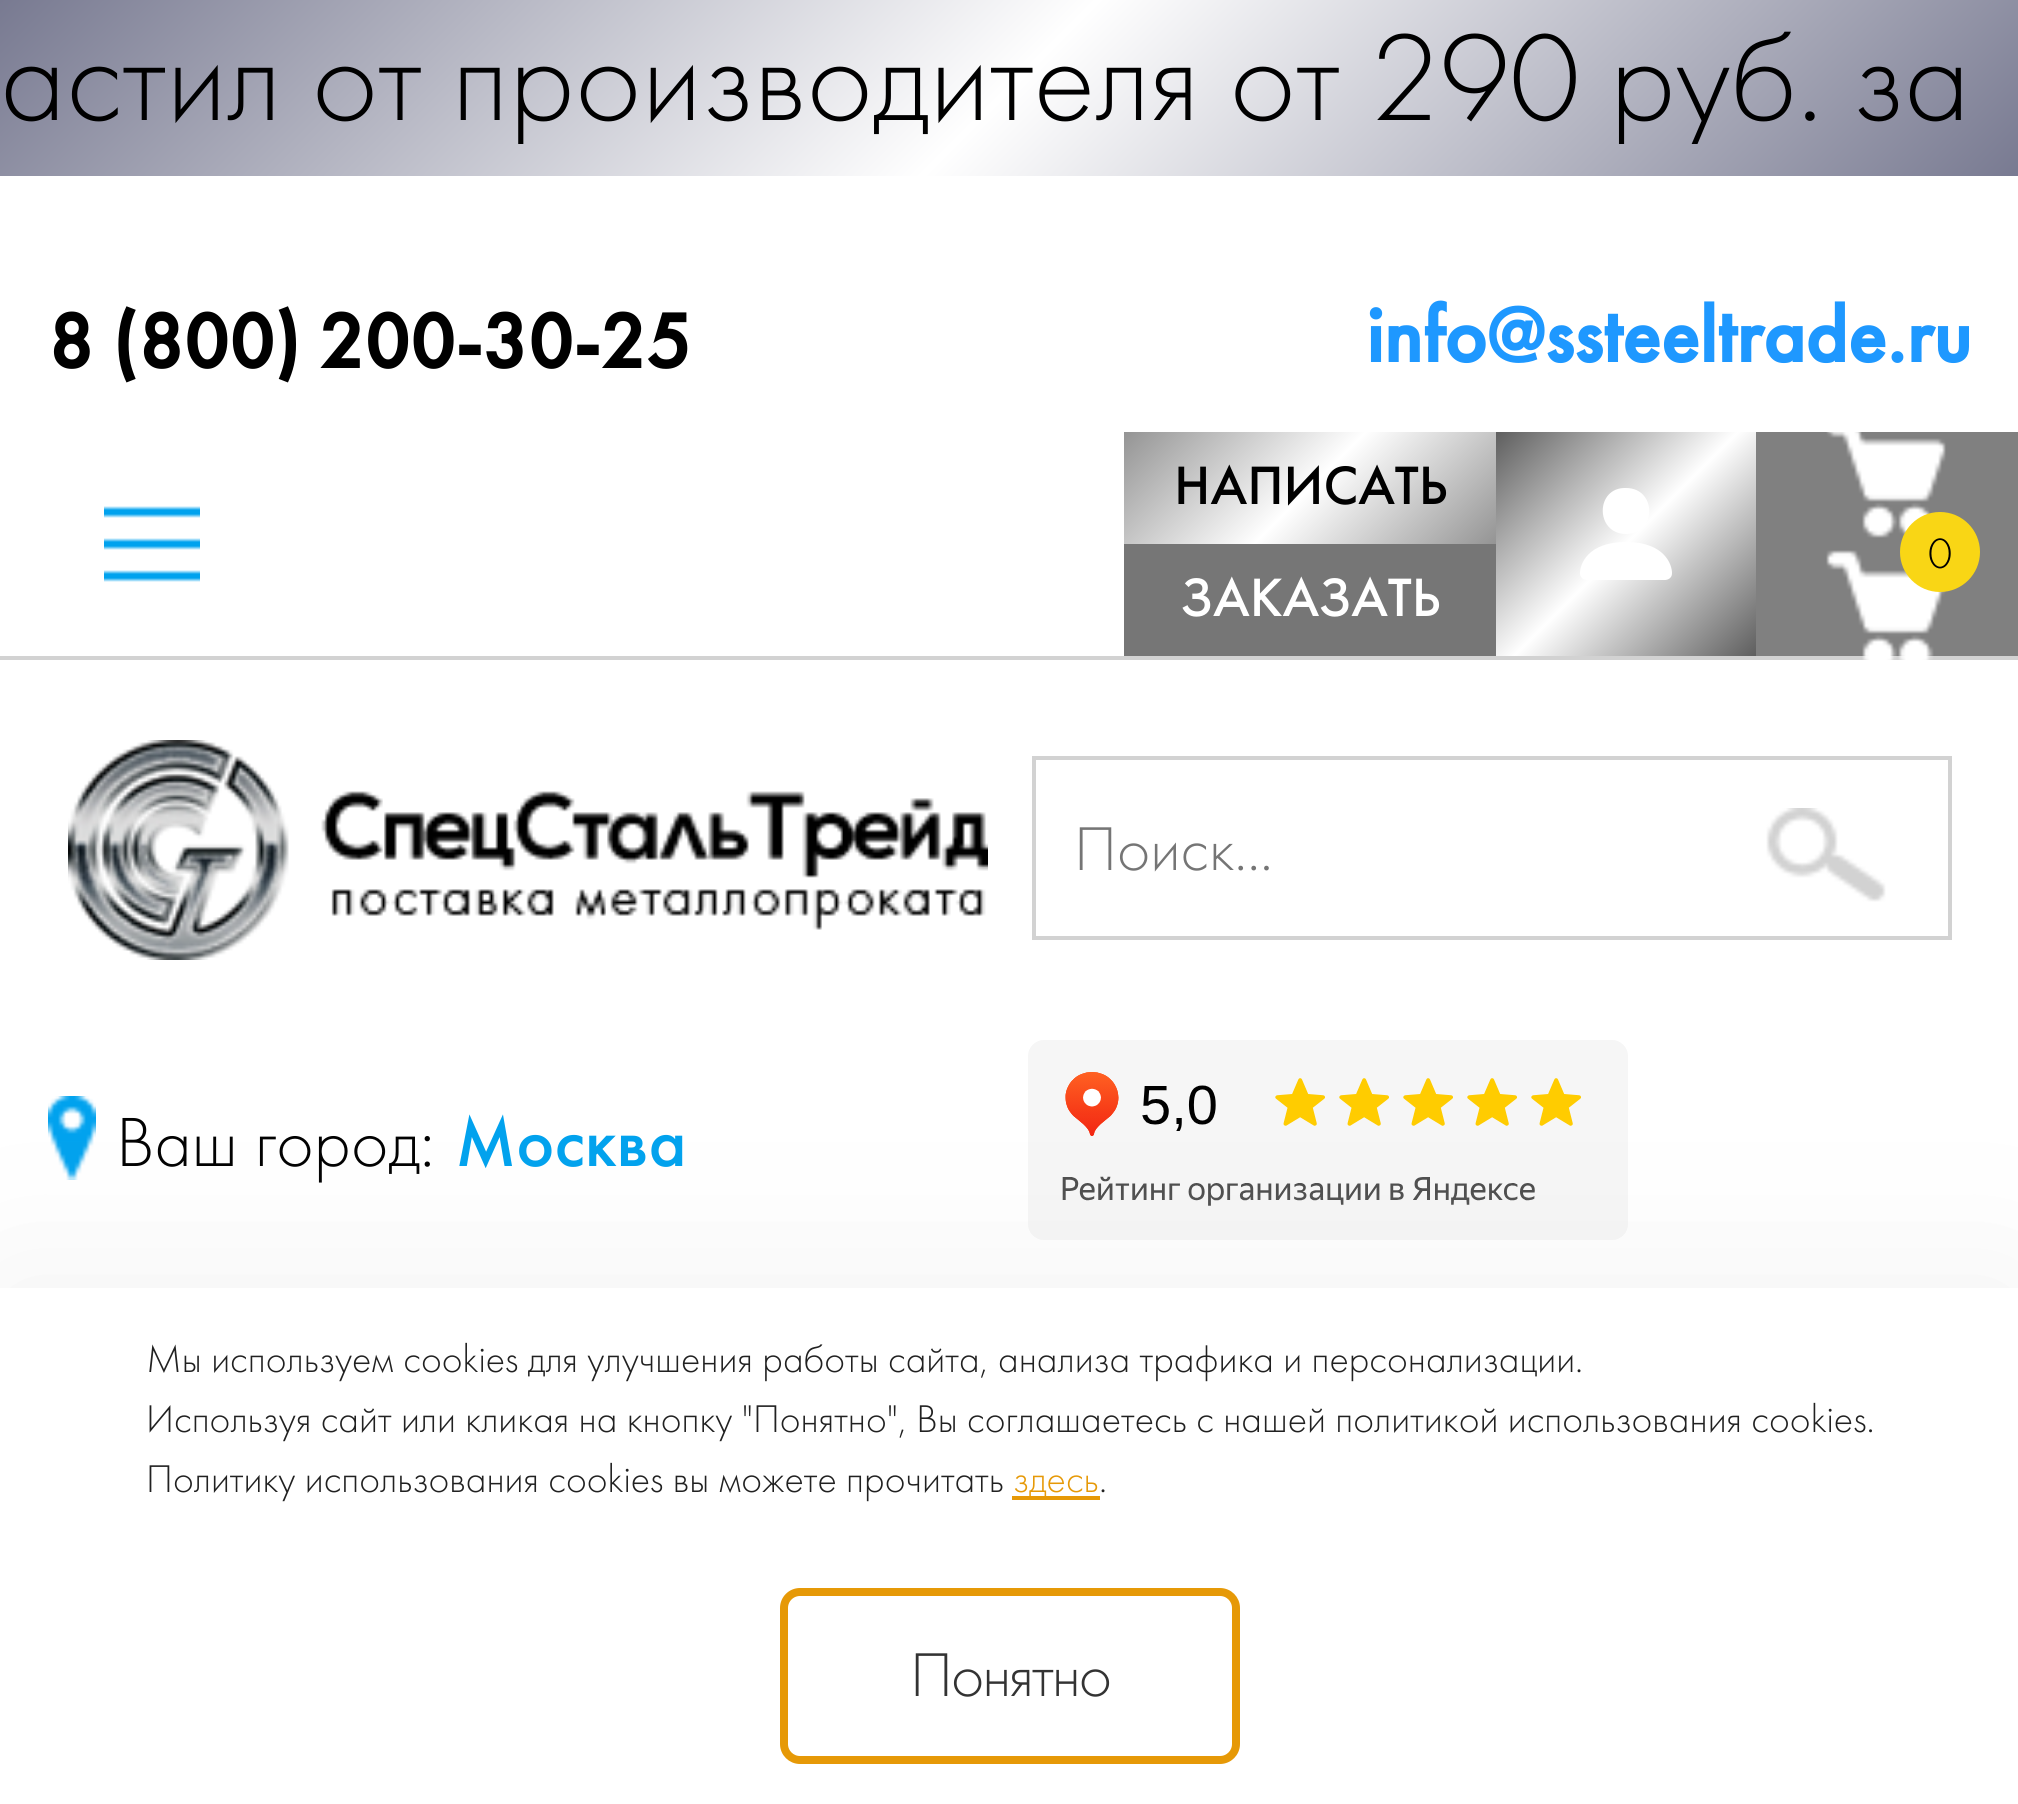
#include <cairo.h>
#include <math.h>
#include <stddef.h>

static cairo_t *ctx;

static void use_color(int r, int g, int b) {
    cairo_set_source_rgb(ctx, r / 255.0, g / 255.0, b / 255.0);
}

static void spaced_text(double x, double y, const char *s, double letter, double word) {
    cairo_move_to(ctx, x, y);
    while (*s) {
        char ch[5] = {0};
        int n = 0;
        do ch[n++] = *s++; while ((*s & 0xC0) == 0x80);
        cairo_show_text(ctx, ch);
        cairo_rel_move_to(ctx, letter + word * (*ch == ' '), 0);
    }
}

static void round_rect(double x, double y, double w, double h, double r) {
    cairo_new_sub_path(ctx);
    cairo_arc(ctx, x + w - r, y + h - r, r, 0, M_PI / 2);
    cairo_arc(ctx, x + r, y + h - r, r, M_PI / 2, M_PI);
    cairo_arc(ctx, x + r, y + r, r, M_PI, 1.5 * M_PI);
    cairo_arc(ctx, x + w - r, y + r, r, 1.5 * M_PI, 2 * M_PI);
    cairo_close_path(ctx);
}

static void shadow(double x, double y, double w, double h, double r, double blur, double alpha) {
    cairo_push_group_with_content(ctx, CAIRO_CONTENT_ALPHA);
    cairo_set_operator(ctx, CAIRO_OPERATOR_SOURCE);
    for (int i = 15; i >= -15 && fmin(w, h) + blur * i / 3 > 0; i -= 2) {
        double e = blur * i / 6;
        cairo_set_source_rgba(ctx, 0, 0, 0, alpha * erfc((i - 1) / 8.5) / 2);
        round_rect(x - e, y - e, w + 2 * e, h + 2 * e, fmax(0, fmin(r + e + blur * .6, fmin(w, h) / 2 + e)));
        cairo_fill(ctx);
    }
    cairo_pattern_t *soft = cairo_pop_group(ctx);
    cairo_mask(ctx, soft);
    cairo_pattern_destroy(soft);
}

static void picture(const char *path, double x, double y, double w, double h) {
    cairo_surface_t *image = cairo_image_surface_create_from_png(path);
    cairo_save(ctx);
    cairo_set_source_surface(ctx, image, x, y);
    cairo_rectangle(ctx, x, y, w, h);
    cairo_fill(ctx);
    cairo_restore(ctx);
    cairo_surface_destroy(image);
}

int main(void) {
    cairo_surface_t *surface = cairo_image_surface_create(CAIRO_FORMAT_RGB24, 2018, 1804);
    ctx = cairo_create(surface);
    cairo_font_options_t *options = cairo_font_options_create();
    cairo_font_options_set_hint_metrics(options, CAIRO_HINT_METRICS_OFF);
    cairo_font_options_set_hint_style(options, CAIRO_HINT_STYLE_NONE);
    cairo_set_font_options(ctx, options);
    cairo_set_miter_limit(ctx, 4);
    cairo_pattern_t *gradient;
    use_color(255, 255, 255);
    cairo_paint(ctx);
    use_color(210, 210, 210);
    cairo_rectangle(ctx, 0, 656, 2018, 4);
    cairo_fill(ctx);
    gradient = cairo_pattern_create_linear(1559, 637, 461, -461);
    cairo_pattern_add_color_stop_rgba(gradient, 0, 0.471, 0.478, 0.569, 1);
    cairo_pattern_add_color_stop_rgba(gradient, 0.5, 1, 1, 1, 1);
    cairo_pattern_add_color_stop_rgba(gradient, 1, 0.471, 0.478, 0.569, 1);
    cairo_set_source(ctx, gradient);
    cairo_pattern_destroy(gradient);
    cairo_rectangle(ctx, 0, 0, 2018, 176);
    cairo_fill(ctx);
    cairo_save(ctx);
    cairo_rectangle(ctx, 0, 16, 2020, 128);
    cairo_clip(ctx);
    cairo_select_font_face(ctx, "Futura PT Light", CAIRO_FONT_SLANT_NORMAL, CAIRO_FONT_WEIGHT_NORMAL);
    cairo_set_font_size(ctx, 128);
    use_color(0, 0, 0);
    cairo_move_to(ctx, 0, 120);
    cairo_show_text(ctx, "астил от производителя от 290 руб. за");
    cairo_restore(ctx);
    cairo_select_font_face(ctx, "Futura PT", CAIRO_FONT_SLANT_NORMAL, CAIRO_FONT_WEIGHT_BOLD);
    cairo_set_font_size(ctx, 80);
    use_color(0, 0, 0);
    cairo_move_to(ctx, 48, 368);
    cairo_show_text(ctx, "8 (800) 200-30-25");
    use_color(30, 152, 255);
    cairo_move_to(ctx, 1366, 362);
    cairo_show_text(ctx, "info@ssteeltrade.ru");
    picture("img1.png", 104, 506, 96, 76);
    gradient = cairo_pattern_create_linear(1431, 609, 1189, 367);
    cairo_pattern_add_color_stop_rgba(gradient, 0, 0.58, 0.58, 0.58, 1);
    cairo_pattern_add_color_stop_rgba(gradient, 0.5, 1, 1, 1, 1);
    cairo_pattern_add_color_stop_rgba(gradient, 1, 0.58, 0.58, 0.58, 1);
    cairo_set_source(ctx, gradient);
    cairo_pattern_destroy(gradient);
    cairo_rectangle(ctx, 1124, 432, 372, 112);
    cairo_fill(ctx);
    cairo_select_font_face(ctx, "Futura PT Medium", CAIRO_FONT_SLANT_NORMAL, CAIRO_FONT_WEIGHT_NORMAL);
    cairo_set_font_size(ctx, 56);
    use_color(0, 0, 0);
    cairo_move_to(ctx, 1174, 504);
    cairo_show_text(ctx, "НАПИСАТЬ");
    use_color(118, 118, 118);
    cairo_rectangle(ctx, 1124, 544, 372, 112);
    cairo_fill(ctx);
    use_color(255, 255, 255);
    cairo_move_to(ctx, 1181, 616);
    cairo_show_text(ctx, "ЗАКАЗАТЬ");
    gradient = cairo_pattern_create_linear(1747, 665, 1505, 423);
    cairo_pattern_add_color_stop_rgba(gradient, 0, 0.369, 0.369, 0.369, 1);
    cairo_pattern_add_color_stop_rgba(gradient, 0.5, 1, 1, 1, 1);
    cairo_pattern_add_color_stop_rgba(gradient, 1, 0.369, 0.369, 0.369, 1);
    cairo_set_source(ctx, gradient);
    cairo_pattern_destroy(gradient);
    cairo_rectangle(ctx, 1496, 432, 260, 224);
    cairo_fill(ctx);
    use_color(255, 255, 255);
    cairo_new_path(ctx);
    cairo_move_to(ctx, 1587, 580);
    cairo_curve_to(ctx, 1587, 580, 1580, 580, 1580, 573);
    cairo_curve_to(ctx, 1580, 565, 1587, 542, 1626, 542);
    cairo_curve_to(ctx, 1665, 542, 1672, 565, 1672, 573);
    cairo_curve_to(ctx, 1672, 580, 1665, 580, 1665, 580);
    cairo_close_path(ctx);
    cairo_move_to(ctx, 1626, 534);
    cairo_curve_to(ctx, 1657, 534, 1657, 488, 1626, 488);
    cairo_curve_to(ctx, 1595, 487, 1595, 534, 1626, 534);
    cairo_close_path(ctx);
    cairo_fill(ctx);
    use_color(128, 128, 128);
    cairo_rectangle(ctx, 1756, 432, 262, 224);
    cairo_fill(ctx);
    picture("img2.png", 1826, 432, 120, 106);
    picture("img3.png", 1826, 550, 120, 110);
    use_color(249, 214, 21);
    cairo_arc(ctx, 1940, 552, 40, 0, 2 * M_PI);
    cairo_fill(ctx);
    cairo_select_font_face(ctx, "Futura PT Light", CAIRO_FONT_SLANT_NORMAL, CAIRO_FONT_WEIGHT_NORMAL);
    cairo_set_font_size(ctx, 44);
    use_color(0, 0, 0);
    cairo_move_to(ctx, 1928, 568);
    cairo_show_text(ctx, "0");
    picture("img4.png", 68, 740, 920, 220);
    cairo_rectangle(ctx, 1034, 758, 916, 180);
    use_color(210, 210, 210);
    cairo_set_line_width(ctx, 4);
    cairo_stroke(ctx);
    cairo_set_font_size(ctx, 64);
    use_color(117, 117, 117);
    cairo_move_to(ctx, 1074, 870);
    cairo_show_text(ctx, "Поиск...");
    picture("img5.png", 1766, 808, 120, 94);
    picture("img6.png", 48, 1096, 48, 84);
    cairo_set_font_size(ctx, 72);
    use_color(0, 0, 0);
    cairo_move_to(ctx, 116, 1166);
    cairo_show_text(ctx, "Ваш город:");
    cairo_select_font_face(ctx, "Futura PT Medium", CAIRO_FONT_SLANT_NORMAL, CAIRO_FONT_WEIGHT_NORMAL);
    use_color(0, 162, 238);
    cairo_move_to(ctx, 455, 1166);
    cairo_show_text(ctx, "Москва");
    picture("img7.png", 1028, 1040, 600, 200);
    use_color(196, 196, 196);
    shadow(0, 1288, 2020, 516, 0, 80, 0.25);
    use_color(255, 255, 255);
    cairo_rectangle(ctx, 0, 1288, 2018, 516);
    cairo_fill(ctx);
    cairo_select_font_face(ctx, "Futura PT Light", CAIRO_FONT_SLANT_NORMAL, CAIRO_FONT_WEIGHT_NORMAL);
    cairo_set_font_size(ctx, 40);
    use_color(33, 33, 33);
    cairo_move_to(ctx, 146, 1372);
    cairo_show_text(ctx, "Мы используем cookies для улучшения работы сайта, анализа трафика и персонализации.");
    cairo_move_to(ctx, 146, 1432);
    cairo_show_text(ctx, "Используя сайт или кликая на кнопку \"Понятно\", Вы соглашаетесь с нашей политикой использования cookies.");
    cairo_move_to(ctx, 146, 1492);
    cairo_show_text(ctx, "Политику использования cookies вы можете прочитать");
    use_color(230, 153, 7);
    cairo_rectangle(ctx, 1012, 1496, 88, 4);
    cairo_fill(ctx);
    cairo_move_to(ctx, 1013, 1492);
    cairo_show_text(ctx, "здесь");
    use_color(33, 33, 33);
    cairo_move_to(ctx, 1099, 1492);
    cairo_show_text(ctx, ".");
    round_rect(784, 1592, 452, 168, 16);
    use_color(230, 153, 7);
    cairo_set_line_width(ctx, 8);
    cairo_stroke(ctx);
    cairo_set_font_size(ctx, 64);
    use_color(51, 51, 51);
    spaced_text(910, 1696, "Понятно", -2, 0);
    cairo_surface_write_to_png(surface, "result.png");
    cairo_font_options_destroy(options);
    cairo_destroy(ctx);
    cairo_surface_destroy(surface);
    return 0;
}
